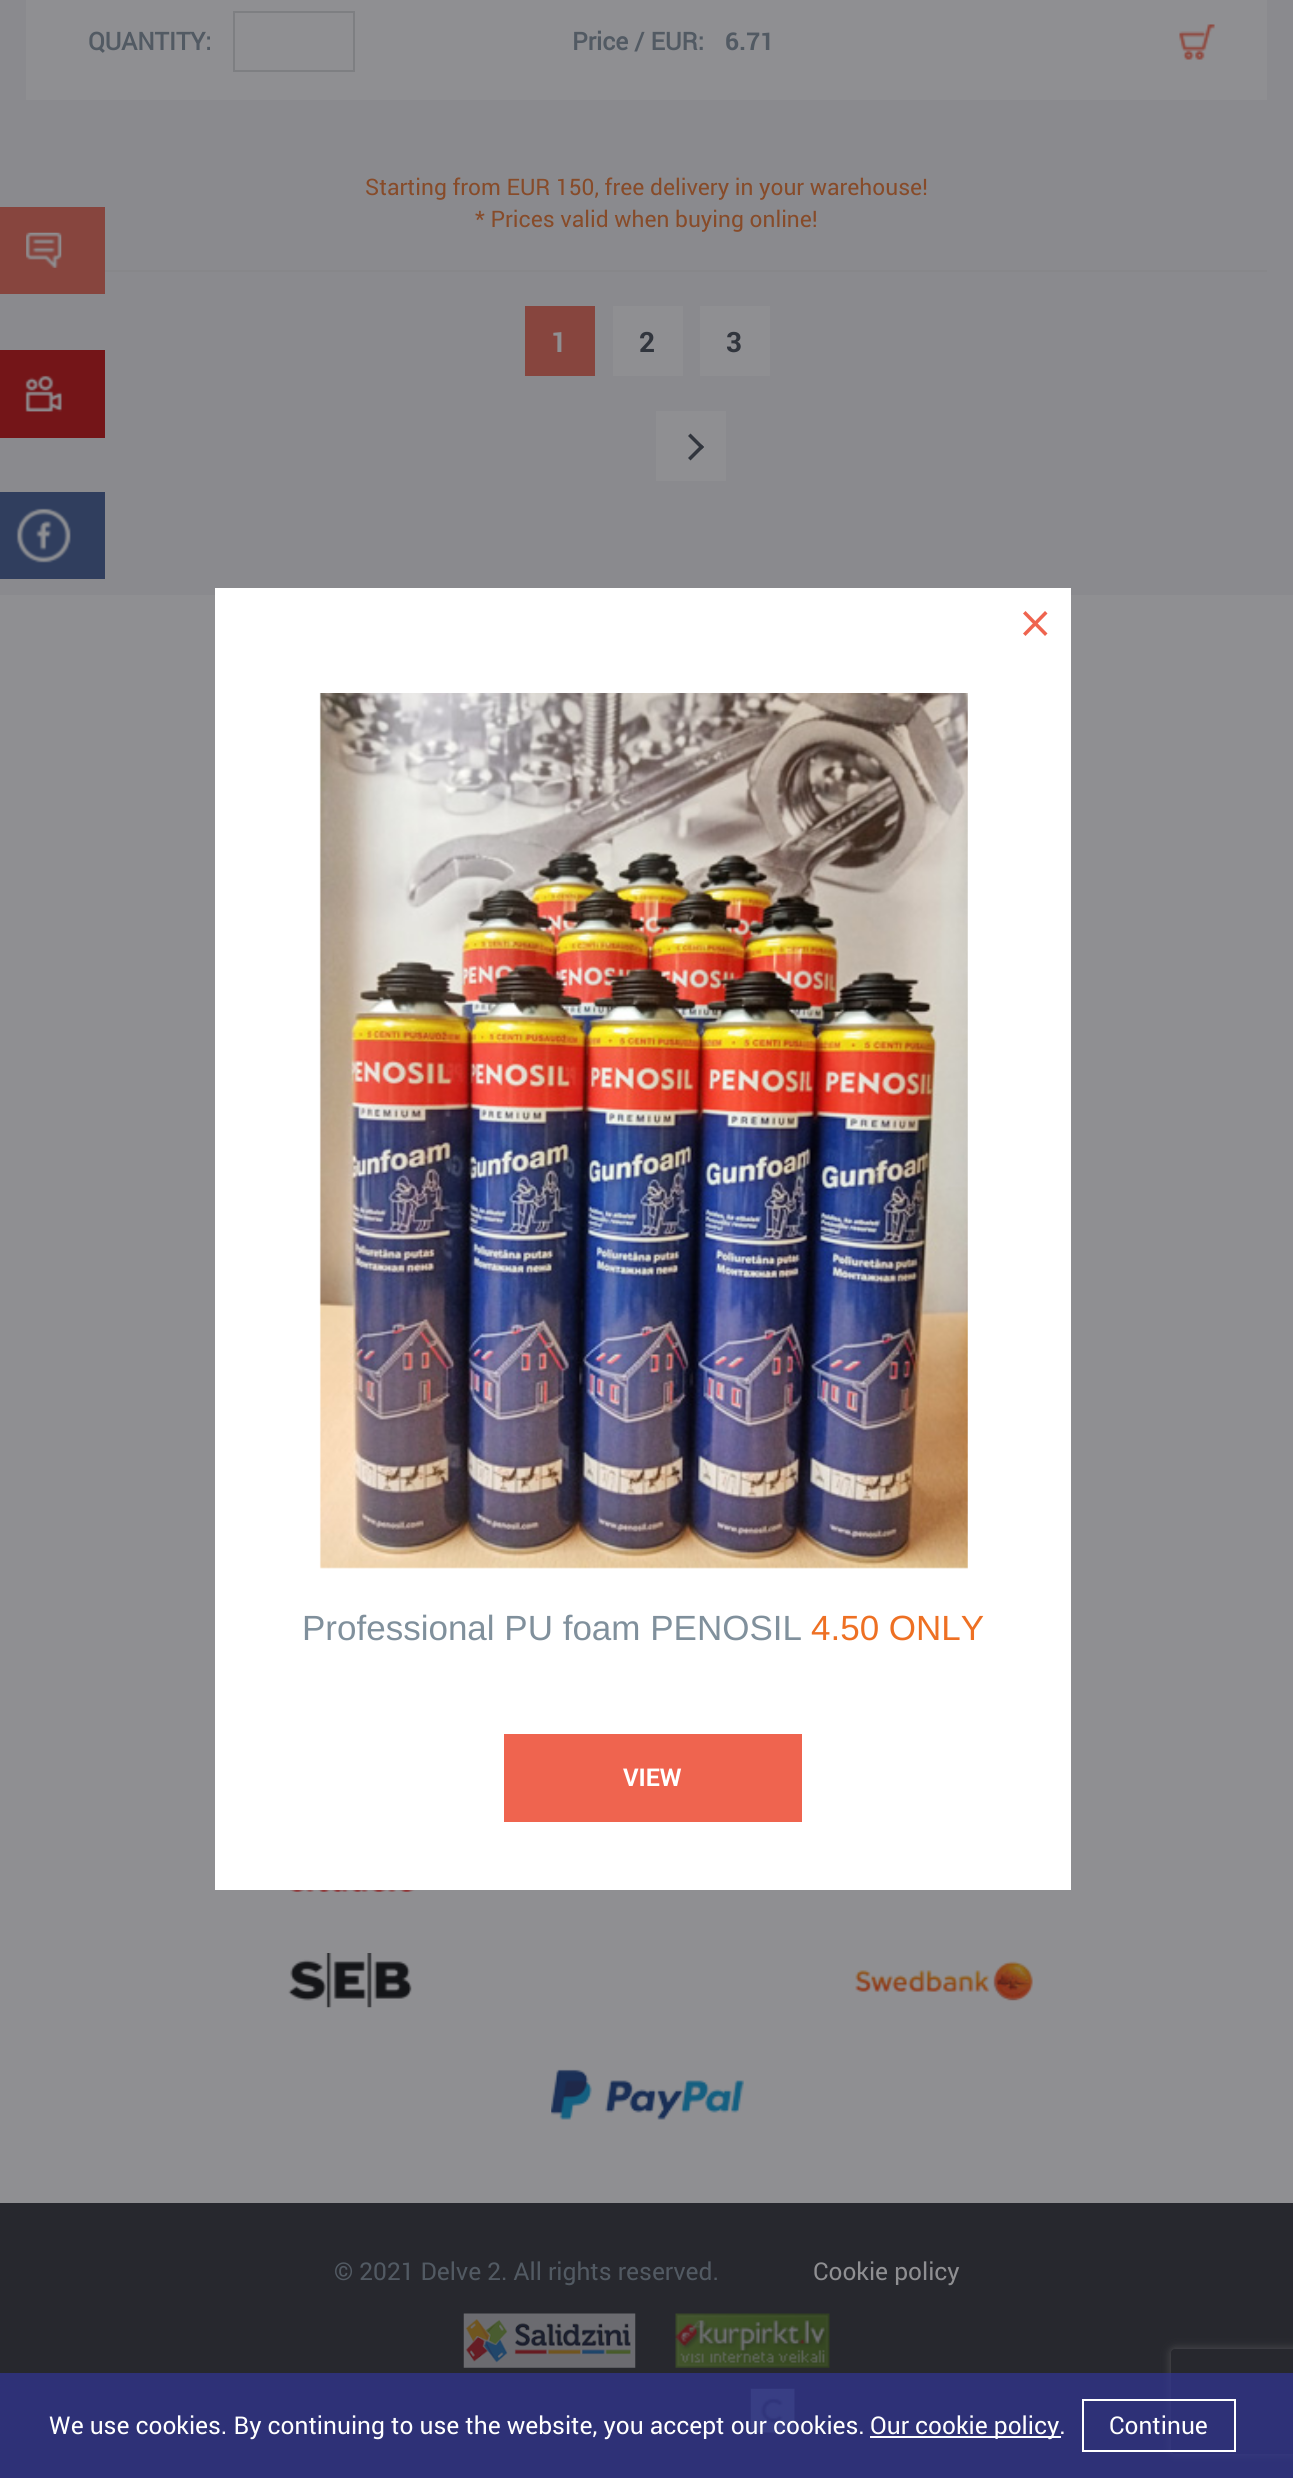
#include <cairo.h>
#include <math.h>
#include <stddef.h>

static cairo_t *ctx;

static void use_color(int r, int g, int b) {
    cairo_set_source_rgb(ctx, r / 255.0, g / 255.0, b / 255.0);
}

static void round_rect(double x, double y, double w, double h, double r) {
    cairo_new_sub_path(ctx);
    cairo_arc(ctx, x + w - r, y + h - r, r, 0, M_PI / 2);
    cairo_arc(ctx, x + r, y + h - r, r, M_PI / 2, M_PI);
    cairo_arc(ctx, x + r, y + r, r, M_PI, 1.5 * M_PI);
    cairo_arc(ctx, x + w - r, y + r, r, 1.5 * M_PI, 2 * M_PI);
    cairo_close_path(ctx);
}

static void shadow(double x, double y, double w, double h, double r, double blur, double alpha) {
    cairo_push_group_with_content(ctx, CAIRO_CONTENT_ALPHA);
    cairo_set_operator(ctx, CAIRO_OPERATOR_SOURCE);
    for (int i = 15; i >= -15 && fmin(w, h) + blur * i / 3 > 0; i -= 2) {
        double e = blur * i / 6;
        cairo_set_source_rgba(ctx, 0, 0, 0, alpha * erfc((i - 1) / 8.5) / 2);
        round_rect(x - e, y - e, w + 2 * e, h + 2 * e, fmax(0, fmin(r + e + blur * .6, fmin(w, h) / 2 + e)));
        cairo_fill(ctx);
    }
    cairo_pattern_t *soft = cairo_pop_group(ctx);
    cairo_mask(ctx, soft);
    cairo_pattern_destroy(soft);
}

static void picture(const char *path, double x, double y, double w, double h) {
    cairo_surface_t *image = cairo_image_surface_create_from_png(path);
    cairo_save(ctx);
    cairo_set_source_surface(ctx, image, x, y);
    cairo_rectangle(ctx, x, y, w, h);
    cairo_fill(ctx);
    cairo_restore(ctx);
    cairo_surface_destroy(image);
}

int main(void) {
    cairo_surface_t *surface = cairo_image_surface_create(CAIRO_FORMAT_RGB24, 1293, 2478);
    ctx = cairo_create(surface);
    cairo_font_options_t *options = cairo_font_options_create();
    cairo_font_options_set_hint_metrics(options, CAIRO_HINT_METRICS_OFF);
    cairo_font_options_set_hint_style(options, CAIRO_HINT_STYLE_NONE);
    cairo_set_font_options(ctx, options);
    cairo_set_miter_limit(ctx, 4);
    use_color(143, 143, 146);
    cairo_paint(ctx);
    use_color(138, 138, 142);
    cairo_rectangle(ctx, 0, 0, 1293, 595);
    cairo_fill(ctx);
    use_color(135, 69, 62);
    cairo_rectangle(ctx, 0, 207, 105, 87);
    cairo_fill(ctx);
    picture("img1.png", 26, 232, 36, 36);
    use_color(143, 143, 146);
    cairo_rectangle(ctx, 26, 0, 1241, 100);
    cairo_fill(ctx);
    cairo_select_font_face(ctx, "Roboto", CAIRO_FONT_SLANT_NORMAL, CAIRO_FONT_WEIGHT_BOLD);
    cairo_set_font_size(ctx, 24.5);
    use_color(82, 90, 99);
    cairo_move_to(ctx, 88, 50);
    cairo_show_text(ctx, "QUANTITY:");
    cairo_rectangle(ctx, 234, 12, 120, 59);
    use_color(126, 127, 130);
    cairo_stroke(ctx);
    use_color(82, 90, 99);
    cairo_move_to(ctx, 572, 50);
    cairo_show_text(ctx, "Price / EUR:");
    cairo_select_font_face(ctx, "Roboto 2", CAIRO_FONT_SLANT_NORMAL, CAIRO_FONT_WEIGHT_BOLD);
    cairo_move_to(ctx, 725, 50);
    cairo_show_text(ctx, "6.71");
    picture("img2.png", 1179, 24, 36, 36);
    cairo_select_font_face(ctx, "Roboto", CAIRO_FONT_SLANT_NORMAL, CAIRO_FONT_WEIGHT_NORMAL);
    cairo_set_font_size(ctx, 22.75);
    use_color(135, 75, 41);
    cairo_move_to(ctx, 365, 195);
    cairo_show_text(ctx, "Starting from EUR 150, free delivery in your warehouse!");
    cairo_move_to(ctx, 475, 227);
    cairo_show_text(ctx, "* Prices valid when buying online!");
    use_color(135, 135, 138);
    cairo_rectangle(ctx, 105, 270, 1162, 2);
    cairo_fill(ctx);
    use_color(135, 69, 62);
    cairo_rectangle(ctx, 525, 306, 70, 70);
    cairo_fill(ctx);
    cairo_select_font_face(ctx, "Roboto 2", CAIRO_FONT_SLANT_NORMAL, CAIRO_FONT_WEIGHT_BOLD);
    cairo_set_font_size(ctx, 28);
    use_color(143, 143, 146);
    cairo_move_to(ctx, 551, 352);
    cairo_show_text(ctx, "1");
    cairo_rectangle(ctx, 613, 306, 70, 70);
    cairo_fill(ctx);
    use_color(49, 53, 61);
    cairo_move_to(ctx, 639, 352);
    cairo_show_text(ctx, "2");
    use_color(143, 143, 146);
    cairo_rectangle(ctx, 700, 306, 70, 70);
    cairo_fill(ctx);
    use_color(49, 53, 61);
    cairo_move_to(ctx, 726, 352);
    cairo_show_text(ctx, "3");
    use_color(143, 143, 146);
    cairo_rectangle(ctx, 656, 411, 70, 70);
    cairo_fill(ctx);
    use_color(49, 53, 61);
    cairo_new_path(ctx);
    cairo_move_to(ctx, 690.5, 433.5);
    cairo_line_to(ctx, 704, 447);
    cairo_line_to(ctx, 701.5, 449.5);
    cairo_line_to(ctx, 688, 436);
    cairo_close_path(ctx);
    cairo_fill(ctx);
    cairo_new_path(ctx);
    cairo_move_to(ctx, 701.5, 444.5);
    cairo_line_to(ctx, 704, 447);
    cairo_line_to(ctx, 690.5, 460.5);
    cairo_line_to(ctx, 688, 458);
    cairo_close_path(ctx);
    cairo_fill(ctx);
    use_color(116, 21, 24);
    cairo_rectangle(ctx, 0, 350, 105, 88);
    cairo_fill(ctx);
    picture("img3.png", 25, 375, 37, 37);
    use_color(48, 62, 94);
    cairo_rectangle(ctx, 0, 492, 105, 87);
    cairo_fill(ctx);
    picture("img4.png", 16, 508, 55, 55);
    use_color(255, 255, 255);
    cairo_rectangle(ctx, 215, 588, 856, 1302);
    cairo_fill(ctx);
    use_color(239, 100, 79);
    cairo_new_path(ctx);
    cairo_move_to(ctx, 1025.5, 611);
    cairo_line_to(ctx, 1047.5, 633.5);
    cairo_line_to(ctx, 1045, 636);
    cairo_line_to(ctx, 1023, 613.5);
    cairo_close_path(ctx);
    cairo_fill(ctx);
    cairo_new_path(ctx);
    cairo_move_to(ctx, 1023, 633.5);
    cairo_line_to(ctx, 1045, 611);
    cairo_line_to(ctx, 1047.5, 613.5);
    cairo_line_to(ctx, 1025.5, 636);
    cairo_close_path(ctx);
    cairo_fill(ctx);
    picture("img5.png", 319, 693, 649, 876);
    cairo_select_font_face(ctx, "Liberation Sans", CAIRO_FONT_SLANT_NORMAL, CAIRO_FONT_WEIGHT_NORMAL);
    cairo_set_font_size(ctx, 35);
    use_color(128, 144, 156);
    cairo_move_to(ctx, 302, 1640);
    cairo_show_text(ctx, "Professional PU foam PENOSIL");
    use_color(238, 112, 35);
    cairo_move_to(ctx, 811, 1640);
    cairo_show_text(ctx, "4.50 ONLY");
    use_color(239, 100, 79);
    cairo_rectangle(ctx, 504, 1734, 298, 88);
    cairo_fill(ctx);
    cairo_select_font_face(ctx, "Roboto 2", CAIRO_FONT_SLANT_NORMAL, CAIRO_FONT_WEIGHT_BOLD);
    cairo_set_font_size(ctx, 24.5);
    use_color(255, 255, 255);
    cairo_move_to(ctx, 623, 1786);
    cairo_show_text(ctx, "VIEW");
    picture("img6.png", 290, 1890, 125, 2);
    picture("img7.png", 288, 1953, 124, 55);
    picture("img8.png", 855, 1961, 178, 40);
    picture("img9.png", 551, 2069, 193, 51);
    use_color(39, 40, 46);
    cairo_rectangle(ctx, 0, 2203, 1293, 275);
    cairo_fill(ctx);
    cairo_select_font_face(ctx, "Roboto", CAIRO_FONT_SLANT_NORMAL, CAIRO_FONT_WEIGHT_NORMAL);
    use_color(82, 90, 99);
    cairo_move_to(ctx, 334, 2280);
    cairo_show_text(ctx, "© 2021 Delve 2. All rights reserved.");
    use_color(143, 143, 146);
    cairo_move_to(ctx, 813, 2280);
    cairo_show_text(ctx, "Cookie policy");
    picture("img10.png", 463, 2313, 173, 55);
    picture("img11.png", 675, 2313, 155, 55);
    picture("img12.png", 750, 2388, 45, 45);
    cairo_save(ctx);
    cairo_set_fill_rule(ctx, CAIRO_FILL_RULE_EVEN_ODD);
    cairo_new_path(ctx);
    cairo_move_to(ctx, 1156, 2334);
    cairo_line_to(ctx, 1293, 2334);
    cairo_line_to(ctx, 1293, 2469);
    cairo_line_to(ctx, 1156, 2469);
    cairo_close_path(ctx);
    cairo_move_to(ctx, 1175, 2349);
    cairo_line_to(ctx, 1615, 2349);
    cairo_curve_to(ctx, 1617, 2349, 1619, 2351, 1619, 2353);
    cairo_line_to(ctx, 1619, 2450);
    cairo_curve_to(ctx, 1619, 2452, 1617, 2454, 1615, 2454);
    cairo_line_to(ctx, 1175, 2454);
    cairo_curve_to(ctx, 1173, 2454, 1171, 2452, 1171, 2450);
    cairo_line_to(ctx, 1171, 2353);
    cairo_curve_to(ctx, 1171, 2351, 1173, 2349, 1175, 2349);
    cairo_close_path(ctx);
    cairo_clip(ctx);
    use_color(82, 82, 85);
    shadow(1171, 2349, 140, 105, 4, 4.5, 1);
    cairo_restore(ctx);
    cairo_set_source_rgba(ctx, 0.192, 0.204, 0.561, 0.75);
    cairo_rectangle(ctx, 0, 2373, 1293, 105);
    cairo_fill(ctx);
    use_color(255, 255, 255);
    cairo_move_to(ctx, 49, 2434);
    cairo_show_text(ctx, "We use cookies. By continuing to use the website, you accept our cookies.");
    cairo_rectangle(ctx, 870, 2436, 191, 2);
    cairo_fill(ctx);
    cairo_move_to(ctx, 870, 2434);
    cairo_show_text(ctx, "Our cookie policy.");
    cairo_rectangle(ctx, 1083, 2400, 152, 51);
    cairo_stroke(ctx);
    cairo_move_to(ctx, 1109, 2434);
    cairo_show_text(ctx, "Continue");
    cairo_surface_write_to_png(surface, "result.png");
    cairo_font_options_destroy(options);
    cairo_destroy(ctx);
    cairo_surface_destroy(surface);
    return 0;
}
